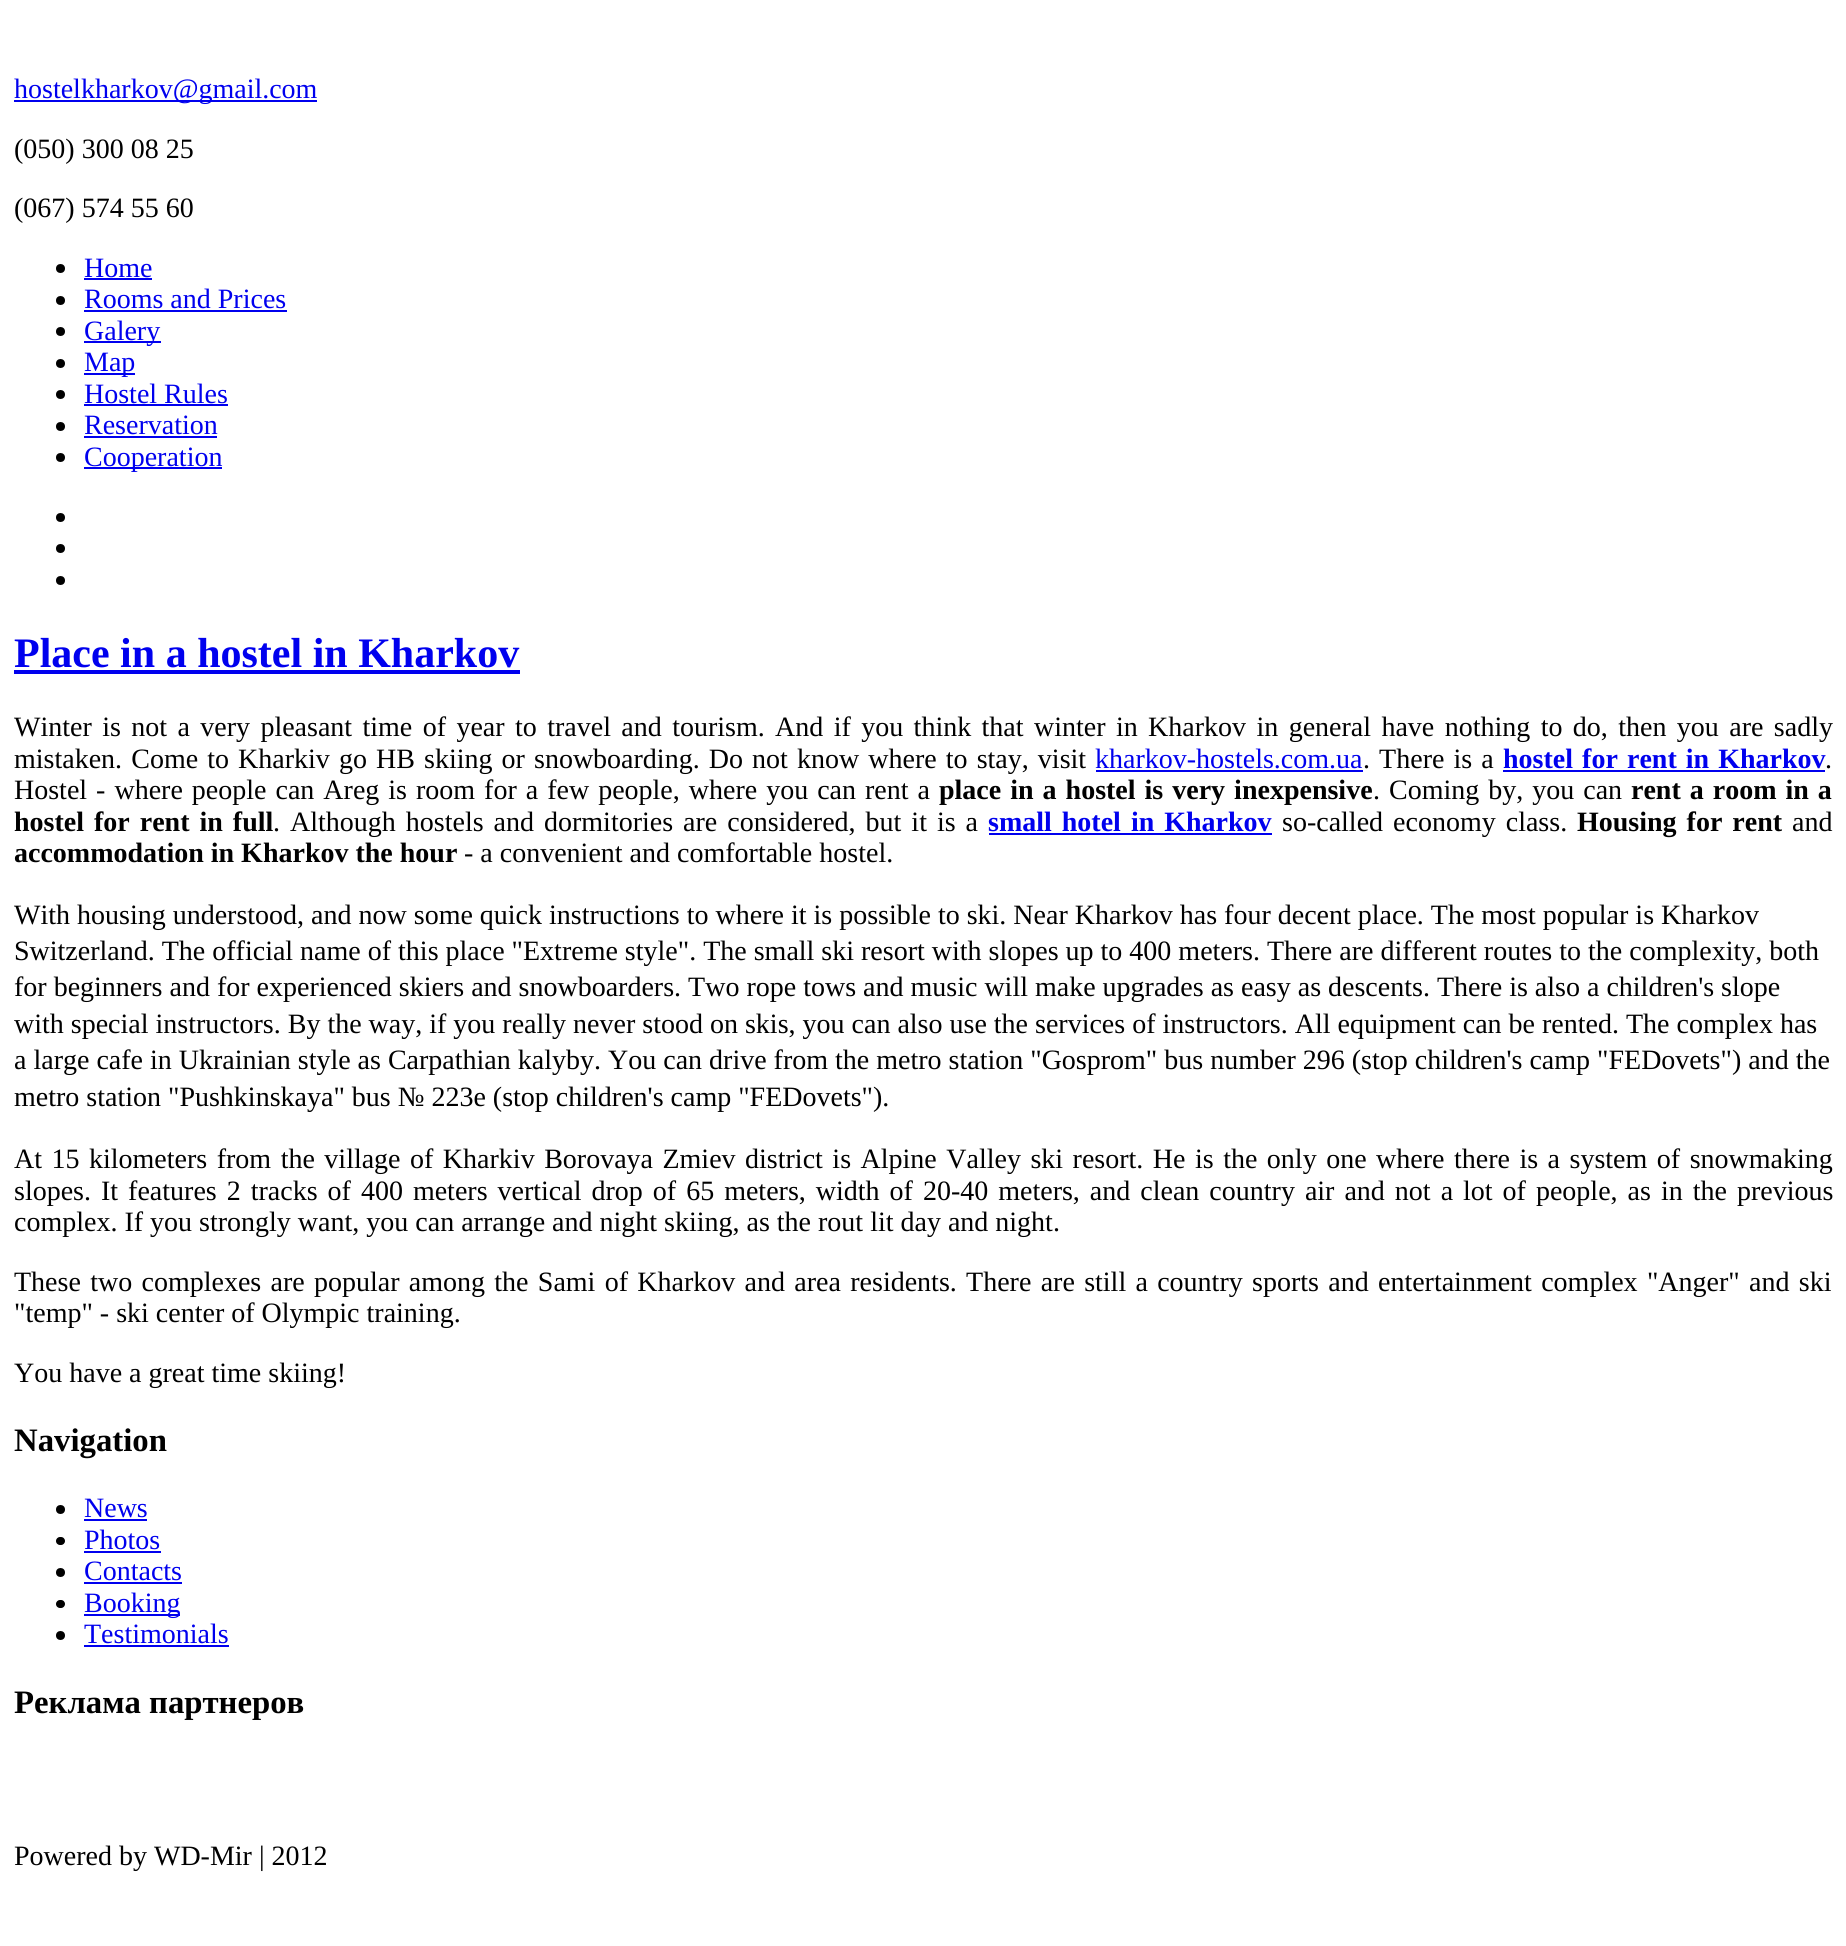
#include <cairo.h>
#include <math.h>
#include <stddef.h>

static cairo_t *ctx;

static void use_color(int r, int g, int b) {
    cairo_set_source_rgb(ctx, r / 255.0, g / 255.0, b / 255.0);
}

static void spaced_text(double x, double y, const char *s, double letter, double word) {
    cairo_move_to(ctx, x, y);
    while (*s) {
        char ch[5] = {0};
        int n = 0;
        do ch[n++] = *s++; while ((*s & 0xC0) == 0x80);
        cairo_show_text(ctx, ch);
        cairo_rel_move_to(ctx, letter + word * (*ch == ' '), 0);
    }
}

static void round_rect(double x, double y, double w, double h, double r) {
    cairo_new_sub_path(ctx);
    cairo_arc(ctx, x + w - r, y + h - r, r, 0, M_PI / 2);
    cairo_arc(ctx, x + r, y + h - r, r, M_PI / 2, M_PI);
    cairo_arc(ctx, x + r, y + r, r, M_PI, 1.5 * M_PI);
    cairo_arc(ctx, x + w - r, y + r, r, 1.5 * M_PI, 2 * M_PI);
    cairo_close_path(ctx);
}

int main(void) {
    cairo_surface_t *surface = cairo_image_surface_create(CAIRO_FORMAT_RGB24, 1846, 1946);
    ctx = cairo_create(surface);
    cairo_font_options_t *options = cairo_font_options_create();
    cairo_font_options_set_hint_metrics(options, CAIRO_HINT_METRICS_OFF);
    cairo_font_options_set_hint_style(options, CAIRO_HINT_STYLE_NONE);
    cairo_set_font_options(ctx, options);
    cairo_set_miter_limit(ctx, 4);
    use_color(255, 255, 255);
    cairo_paint(ctx);
    use_color(0, 0, 238);
    cairo_rectangle(ctx, 14, 100, 303, 2);
    cairo_fill(ctx);
    cairo_select_font_face(ctx, "Liberation Serif", CAIRO_FONT_SLANT_NORMAL, CAIRO_FONT_WEIGHT_NORMAL);
    cairo_set_font_size(ctx, 28);
    cairo_move_to(ctx, 14, 98);
    cairo_show_text(ctx, "hostelkharkov@gmail.com");
    use_color(0, 0, 0);
    cairo_move_to(ctx, 14, 158);
    cairo_show_text(ctx, "(050) 300 08 25");
    cairo_move_to(ctx, 14, 217);
    cairo_show_text(ctx, "(067) 574 55 60");
    cairo_new_path(ctx);
    cairo_arc(ctx, 60.5, 268.5, 4.5, 0, 2 * M_PI);
    cairo_fill(ctx);
    use_color(0, 0, 238);
    cairo_move_to(ctx, 84, 277);
    cairo_show_text(ctx, "Home");
    cairo_rectangle(ctx, 84, 278, 68, 2);
    cairo_fill(ctx);
    use_color(0, 0, 0);
    cairo_arc(ctx, 60.5, 300.5, 4.5, 0, 2 * M_PI);
    cairo_fill(ctx);
    use_color(0, 0, 238);
    cairo_move_to(ctx, 84, 308);
    cairo_show_text(ctx, "Rooms and Prices");
    cairo_rectangle(ctx, 84, 310, 203, 2);
    cairo_fill(ctx);
    use_color(0, 0, 0);
    cairo_arc(ctx, 60.5, 331.5, 4.5, 0, 2 * M_PI);
    cairo_fill(ctx);
    use_color(0, 0, 238);
    cairo_rectangle(ctx, 84, 341, 77, 2);
    cairo_fill(ctx);
    cairo_move_to(ctx, 84, 340);
    cairo_show_text(ctx, "Galery");
    use_color(0, 0, 0);
    cairo_new_path(ctx);
    cairo_arc(ctx, 60.5, 363.5, 4.5, 0, 2 * M_PI);
    cairo_fill(ctx);
    use_color(0, 0, 238);
    cairo_rectangle(ctx, 84, 373, 51, 2);
    cairo_fill(ctx);
    cairo_move_to(ctx, 84, 371);
    cairo_show_text(ctx, "Map");
    use_color(0, 0, 0);
    cairo_new_path(ctx);
    cairo_arc(ctx, 60.5, 394.5, 4.5, 0, 2 * M_PI);
    cairo_fill(ctx);
    use_color(0, 0, 238);
    cairo_move_to(ctx, 84, 403);
    cairo_show_text(ctx, "Hostel Rules");
    cairo_rectangle(ctx, 84, 404, 144, 2);
    cairo_fill(ctx);
    use_color(0, 0, 0);
    cairo_arc(ctx, 60.5, 426.5, 4.5, 0, 2 * M_PI);
    cairo_fill(ctx);
    use_color(0, 0, 238);
    cairo_move_to(ctx, 84, 434);
    cairo_show_text(ctx, "Reservation");
    cairo_rectangle(ctx, 84, 436, 133, 2);
    cairo_fill(ctx);
    use_color(0, 0, 0);
    cairo_arc(ctx, 60.5, 457.5, 4.5, 0, 2 * M_PI);
    cairo_fill(ctx);
    use_color(0, 0, 238);
    cairo_rectangle(ctx, 84, 467, 138, 2);
    cairo_fill(ctx);
    cairo_move_to(ctx, 84, 466);
    cairo_show_text(ctx, "Cooperation");
    use_color(0, 0, 0);
    cairo_new_path(ctx);
    cairo_arc(ctx, 60.5, 517.5, 4.5, 0, 2 * M_PI);
    cairo_fill(ctx);
    cairo_arc(ctx, 60.5, 548.5, 4.5, 0, 2 * M_PI);
    cairo_fill(ctx);
    cairo_arc(ctx, 60.5, 580.5, 4.5, 0, 2 * M_PI);
    cairo_fill(ctx);
    cairo_select_font_face(ctx, "Liberation Serif", CAIRO_FONT_SLANT_NORMAL, CAIRO_FONT_WEIGHT_BOLD);
    cairo_set_font_size(ctx, 42);
    use_color(0, 0, 238);
    cairo_move_to(ctx, 14, 667);
    cairo_show_text(ctx, "Place in a hostel in Kharkov");
    cairo_rectangle(ctx, 14, 670, 506, 4);
    cairo_fill(ctx);
    cairo_select_font_face(ctx, "Liberation Serif", CAIRO_FONT_SLANT_NORMAL, CAIRO_FONT_WEIGHT_NORMAL);
    cairo_set_font_size(ctx, 28);
    use_color(0, 0, 0);
    spaced_text(14, 736, "Winter is not a very pleasant time of year to travel and tourism. And if you think that winter in Kharkov in general have nothing to do, then you are sadly", 0, 3.4);
    spaced_text(14, 768, "mistaken. Come to Kharkiv go HB skiing or snowboarding. Do not know where to stay, visit", 0, 2.1);
    use_color(0, 0, 238);
    cairo_move_to(ctx, 1095, 768);
    cairo_show_text(ctx, "kharkov-hostels.com.ua");
    cairo_rectangle(ctx, 1096, 770, 267, 2);
    cairo_fill(ctx);
    use_color(0, 0, 0);
    spaced_text(1363, 768, ". There is a", 0, 2.1);
    cairo_select_font_face(ctx, "Liberation Serif", CAIRO_FONT_SLANT_NORMAL, CAIRO_FONT_WEIGHT_BOLD);
    use_color(0, 0, 238);
    spaced_text(1503, 768, "hostel for rent in Kharkov", 0, 2.1);
    cairo_rectangle(ctx, 1503, 770, 322, 2);
    cairo_fill(ctx);
    cairo_select_font_face(ctx, "Liberation Serif", CAIRO_FONT_SLANT_NORMAL, CAIRO_FONT_WEIGHT_NORMAL);
    use_color(0, 0, 0);
    cairo_move_to(ctx, 1825, 768);
    cairo_show_text(ctx, ".");
    spaced_text(14, 799, "Hostel - where people can Areg is room for a few people, where you can rent a", 0, 2);
    cairo_select_font_face(ctx, "Liberation Serif", CAIRO_FONT_SLANT_NORMAL, CAIRO_FONT_WEIGHT_BOLD);
    spaced_text(939, 799, "place in a hostel is very inexpensive", 0, 2);
    cairo_select_font_face(ctx, "Liberation Serif", CAIRO_FONT_SLANT_NORMAL, CAIRO_FONT_WEIGHT_NORMAL);
    spaced_text(1373, 799, ". Coming by, you can", 0, 2);
    cairo_select_font_face(ctx, "Liberation Serif", CAIRO_FONT_SLANT_NORMAL, CAIRO_FONT_WEIGHT_BOLD);
    spaced_text(1631, 799, "rent a room in a", 0, 2);
    spaced_text(14, 831, "hostel for rent in full", 0, 3);
    cairo_select_font_face(ctx, "Liberation Serif", CAIRO_FONT_SLANT_NORMAL, CAIRO_FONT_WEIGHT_NORMAL);
    spaced_text(273, 831, ". Although hostels and dormitories are considered, but it is a", 0, 3);
    cairo_select_font_face(ctx, "Liberation Serif", CAIRO_FONT_SLANT_NORMAL, CAIRO_FONT_WEIGHT_BOLD);
    use_color(0, 0, 238);
    spaced_text(988, 831, "small hotel in Kharkov", 0, 3);
    cairo_rectangle(ctx, 989, 833, 283, 2);
    cairo_fill(ctx);
    cairo_select_font_face(ctx, "Liberation Serif", CAIRO_FONT_SLANT_NORMAL, CAIRO_FONT_WEIGHT_NORMAL);
    use_color(0, 0, 0);
    spaced_text(1282, 831, "so-called economy class.", 0, 3);
    cairo_select_font_face(ctx, "Liberation Serif", CAIRO_FONT_SLANT_NORMAL, CAIRO_FONT_WEIGHT_BOLD);
    spaced_text(1577, 831, "Housing for rent", 0, 3);
    cairo_select_font_face(ctx, "Liberation Serif", CAIRO_FONT_SLANT_NORMAL, CAIRO_FONT_WEIGHT_NORMAL);
    cairo_move_to(ctx, 1792, 831);
    cairo_show_text(ctx, "and");
    cairo_select_font_face(ctx, "Liberation Serif", CAIRO_FONT_SLANT_NORMAL, CAIRO_FONT_WEIGHT_BOLD);
    cairo_move_to(ctx, 14, 862);
    cairo_show_text(ctx, "accommodation in Kharkov the hour");
    cairo_select_font_face(ctx, "Liberation Serif", CAIRO_FONT_SLANT_NORMAL, CAIRO_FONT_WEIGHT_NORMAL);
    cairo_move_to(ctx, 464, 862);
    cairo_show_text(ctx, "- a convenient and comfortable hostel.");
    cairo_move_to(ctx, 14, 924);
    cairo_show_text(ctx, "With housing understood, and now some quick instructions to where it is possible to ski. Near Kharkov has four decent place. The most popular is Kharkov");
    cairo_move_to(ctx, 14, 960);
    cairo_show_text(ctx, "Switzerland. The official name of this place \"Extreme style\". The small ski resort with slopes up to 400 meters. There are different routes to the complexity, both");
    cairo_move_to(ctx, 14, 996);
    cairo_show_text(ctx, "for beginners and for experienced skiers and snowboarders. Two rope tows and music will make upgrades as easy as descents. There is also a children's slope");
    cairo_move_to(ctx, 14, 1033);
    cairo_show_text(ctx, "with special instructors. By the way, if you really never stood on skis, you can also use the services of instructors. All equipment can be rented. The complex has");
    cairo_move_to(ctx, 14, 1069);
    cairo_show_text(ctx, "a large cafe in Ukrainian style as Carpathian kalyby. You can drive from the metro station \"Gosprom\" bus number 296 (stop children's camp \"FEDovets\") and the");
    cairo_move_to(ctx, 14, 1106);
    cairo_show_text(ctx, "metro station \"Pushkinskaya\" bus № 223e (stop children's camp \"FEDovets\").");
    spaced_text(14, 1168, "At 15 kilometers from the village of Kharkiv Borovaya Zmiev district is Alpine Valley ski resort. He is the only one where there is a system of snowmaking", 0, 2.5);
    spaced_text(14, 1200, "slopes. It features 2 tracks of 400 meters vertical drop of 65 meters, width of 20-40 meters, and clean country air and not a lot of people, as in the previous", 0, 3);
    cairo_move_to(ctx, 14, 1231);
    cairo_show_text(ctx, "complex. If you strongly want, you can arrange and night skiing, as the rout lit day and night.");
    spaced_text(14, 1291, "These two complexes are popular among the Sami of Kharkov and area residents. There are still a country sports and entertainment complex \"Anger\" and ski", 0, 2.3);
    cairo_move_to(ctx, 14, 1322);
    cairo_show_text(ctx, "\"temp\" - ski center of Olympic training.");
    cairo_move_to(ctx, 14, 1382);
    cairo_show_text(ctx, "You have a great time skiing!");
    cairo_select_font_face(ctx, "Liberation Serif", CAIRO_FONT_SLANT_NORMAL, CAIRO_FONT_WEIGHT_BOLD);
    cairo_set_font_size(ctx, 32.75);
    cairo_move_to(ctx, 14, 1451);
    cairo_show_text(ctx, "Navigation");
    cairo_new_path(ctx);
    cairo_arc(ctx, 60.5, 1509.5, 4.5, 0, 2 * M_PI);
    cairo_fill(ctx);
    cairo_select_font_face(ctx, "Liberation Serif", CAIRO_FONT_SLANT_NORMAL, CAIRO_FONT_WEIGHT_NORMAL);
    cairo_set_font_size(ctx, 28);
    use_color(0, 0, 238);
    cairo_move_to(ctx, 84, 1517);
    cairo_show_text(ctx, "News");
    cairo_rectangle(ctx, 84, 1519, 63, 2);
    cairo_fill(ctx);
    use_color(0, 0, 0);
    round_rect(56, 1537, 9, 8, 4);
    cairo_fill(ctx);
    use_color(0, 0, 238);
    cairo_move_to(ctx, 84, 1549);
    cairo_show_text(ctx, "Photos");
    cairo_rectangle(ctx, 84, 1551, 77, 2);
    cairo_fill(ctx);
    use_color(0, 0, 0);
    cairo_arc(ctx, 60.5, 1572.5, 4.5, 0, 2 * M_PI);
    cairo_fill(ctx);
    use_color(0, 0, 238);
    cairo_move_to(ctx, 84, 1580);
    cairo_show_text(ctx, "Contacts");
    cairo_rectangle(ctx, 84, 1582, 98, 2);
    cairo_fill(ctx);
    use_color(0, 0, 0);
    round_rect(56, 1600, 9, 8, 4);
    cairo_fill(ctx);
    use_color(0, 0, 238);
    cairo_rectangle(ctx, 84, 1614, 96, 2);
    cairo_fill(ctx);
    cairo_move_to(ctx, 84, 1612);
    cairo_show_text(ctx, "Booking");
    use_color(0, 0, 0);
    cairo_new_path(ctx);
    cairo_arc(ctx, 60.5, 1635.5, 4.5, 0, 2 * M_PI);
    cairo_fill(ctx);
    use_color(0, 0, 238);
    cairo_move_to(ctx, 84, 1643);
    cairo_show_text(ctx, "Testimonials");
    cairo_rectangle(ctx, 84, 1645, 145, 2);
    cairo_fill(ctx);
    cairo_select_font_face(ctx, "Liberation Serif", CAIRO_FONT_SLANT_NORMAL, CAIRO_FONT_WEIGHT_BOLD);
    cairo_set_font_size(ctx, 32.75);
    use_color(0, 0, 0);
    cairo_move_to(ctx, 14, 1713);
    cairo_show_text(ctx, "Реклама партнеров");
    cairo_select_font_face(ctx, "Liberation Serif", CAIRO_FONT_SLANT_NORMAL, CAIRO_FONT_WEIGHT_NORMAL);
    cairo_set_font_size(ctx, 28);
    cairo_move_to(ctx, 14, 1865);
    cairo_show_text(ctx, "Powered by WD-Mir | 2012");
    cairo_surface_write_to_png(surface, "result.png");
    cairo_font_options_destroy(options);
    cairo_destroy(ctx);
    cairo_surface_destroy(surface);
    return 0;
}
